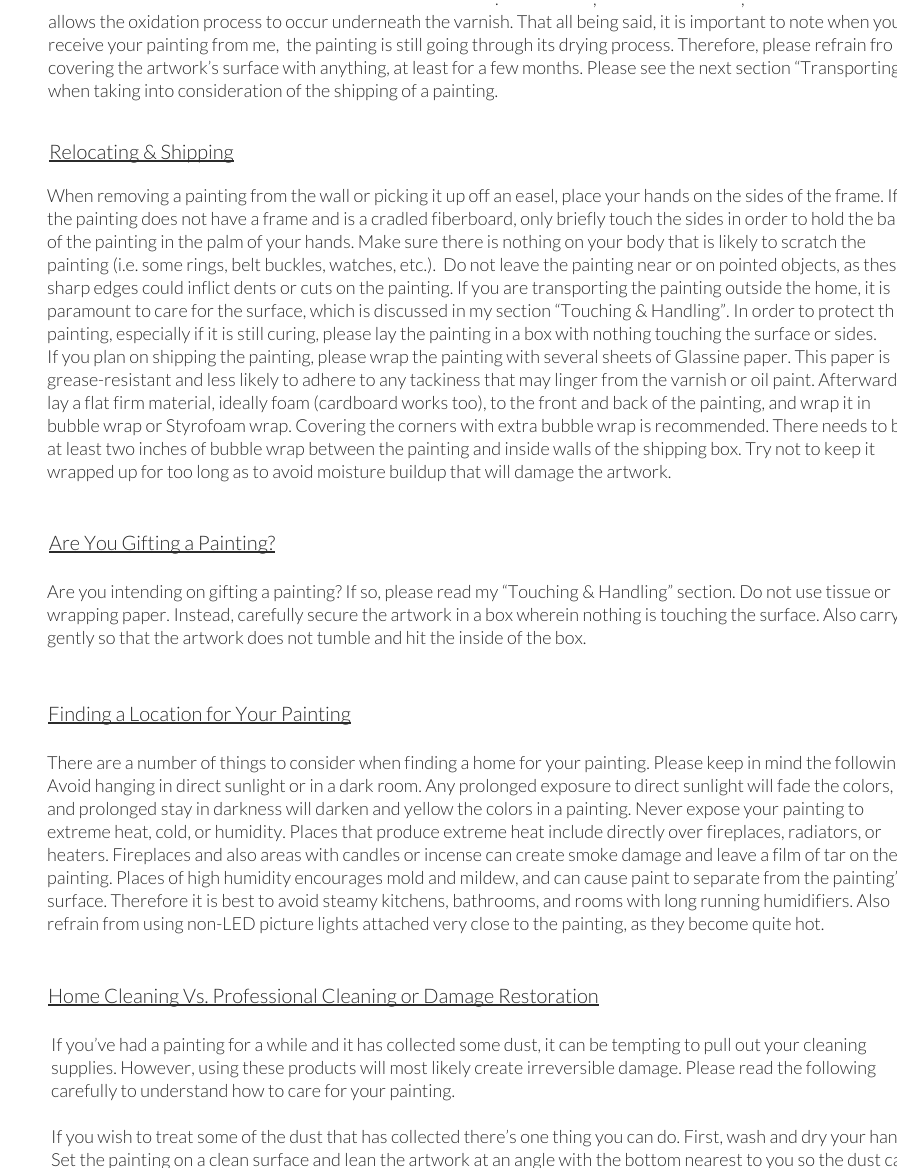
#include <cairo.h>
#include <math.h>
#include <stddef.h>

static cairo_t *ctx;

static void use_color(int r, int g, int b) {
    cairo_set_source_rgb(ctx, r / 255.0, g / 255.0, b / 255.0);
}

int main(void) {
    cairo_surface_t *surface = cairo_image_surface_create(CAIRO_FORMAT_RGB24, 897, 1168);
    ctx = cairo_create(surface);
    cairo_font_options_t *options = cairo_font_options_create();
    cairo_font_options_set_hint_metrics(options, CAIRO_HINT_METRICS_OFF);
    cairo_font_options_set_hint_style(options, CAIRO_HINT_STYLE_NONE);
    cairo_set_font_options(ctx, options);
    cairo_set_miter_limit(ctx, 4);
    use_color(255, 255, 255);
    cairo_paint(ctx);
    cairo_select_font_face(ctx, "Lato Light", CAIRO_FONT_SLANT_NORMAL, CAIRO_FONT_WEIGHT_NORMAL);
    cairo_set_font_size(ctx, 18);
    use_color(43, 43, 43);
    cairo_move_to(ctx, 495, 5);
    cairo_show_text(ctx, ".");
    cairo_move_to(ctx, 593, 5);
    cairo_show_text(ctx, ",");
    cairo_move_to(ctx, 741, 5);
    cairo_show_text(ctx, ",");
    cairo_move_to(ctx, 48, 28);
    cairo_show_text(ctx, "allows the oxidation process to occur underneath the varnish. That all being said, it is important to note when you");
    cairo_move_to(ctx, 48, 51);
    cairo_show_text(ctx, "receive your painting from me,  the painting is still going through its drying process. Therefore, please refrain fro");
    cairo_move_to(ctx, 48, 74);
    cairo_show_text(ctx, "covering the artwork’s surface with anything, at least for a few months. Please see the next section “Transporting");
    cairo_move_to(ctx, 48, 97);
    cairo_show_text(ctx, "when taking into consideration of the shipping of a painting.");
    cairo_rectangle(ctx, 49, 160, 185, 2);
    cairo_fill(ctx);
    cairo_set_font_size(ctx, 20);
    cairo_move_to(ctx, 49, 159);
    cairo_show_text(ctx, "Relocating & Shipping");
    cairo_set_font_size(ctx, 18);
    cairo_move_to(ctx, 47, 202);
    cairo_show_text(ctx, "When removing a painting from the wall or picking it up off an easel, place your hands on the sides of the frame. If");
    cairo_move_to(ctx, 47, 225);
    cairo_show_text(ctx, "the painting does not have a frame and is a cradled fiberboard, only briefly touch the sides in order to hold the ba");
    cairo_move_to(ctx, 47, 248);
    cairo_show_text(ctx, "of the painting in the palm of your hands. Make sure there is nothing on your body that is likely to scratch the");
    cairo_move_to(ctx, 47, 271);
    cairo_show_text(ctx, "painting (i.e. some rings, belt buckles, watches, etc.).  Do not leave the painting near or on pointed objects, as thes");
    cairo_move_to(ctx, 47, 294);
    cairo_show_text(ctx, "sharp edges could inflict dents or cuts on the painting. If you are transporting the painting outside the home, it is");
    cairo_move_to(ctx, 47, 317);
    cairo_show_text(ctx, "paramount to care for the surface, which is discussed in my section “Touching & Handling”. In order to protect th");
    cairo_move_to(ctx, 47, 340);
    cairo_show_text(ctx, "painting, especially if it is still curing, please lay the painting in a box with nothing touching the surface or sides.");
    cairo_move_to(ctx, 47, 363);
    cairo_show_text(ctx, "If you plan on shipping the painting, please wrap the painting with several sheets of Glassine paper. This paper is");
    cairo_move_to(ctx, 47, 386);
    cairo_show_text(ctx, "grease-resistant and less likely to adhere to any tackiness that may linger from the varnish or oil paint. Afterward");
    cairo_move_to(ctx, 47, 409);
    cairo_show_text(ctx, "lay a flat firm material, ideally foam (cardboard works too), to the front and back of the painting, and wrap it in");
    cairo_move_to(ctx, 47, 432);
    cairo_show_text(ctx, "bubble wrap or Styrofoam wrap. Covering the corners with extra bubble wrap is recommended. There needs to b");
    cairo_move_to(ctx, 47, 455);
    cairo_show_text(ctx, "at least two inches of bubble wrap between the painting and inside walls of the shipping box. Try not to keep it");
    cairo_move_to(ctx, 47, 478);
    cairo_show_text(ctx, "wrapped up for too long as to avoid moisture buildup that will damage the artwork.");
    cairo_rectangle(ctx, 49, 551, 226, 2);
    cairo_fill(ctx);
    cairo_set_font_size(ctx, 20);
    cairo_move_to(ctx, 49, 550);
    cairo_show_text(ctx, "Are You Gifting a Painting?");
    cairo_set_font_size(ctx, 18);
    cairo_move_to(ctx, 47, 598);
    cairo_show_text(ctx, "Are you intending on gifting a painting? If so, please read my “Touching & Handling” section. Do not use tissue or");
    cairo_move_to(ctx, 47, 621);
    cairo_show_text(ctx, "wrapping paper. Instead, carefully secure the artwork in a box wherein nothing is touching the surface. Also carry");
    cairo_move_to(ctx, 47, 644);
    cairo_show_text(ctx, "gently so that the artwork does not tumble and hit the inside of the box.");
    cairo_rectangle(ctx, 48, 722, 303, 2);
    cairo_fill(ctx);
    cairo_set_font_size(ctx, 20);
    cairo_move_to(ctx, 48, 721);
    cairo_show_text(ctx, "Finding a Location for Your Painting");
    cairo_set_font_size(ctx, 18);
    cairo_move_to(ctx, 47, 769);
    cairo_show_text(ctx, "There are a number of things to consider when finding a home for your painting. Please keep in mind the followin");
    cairo_move_to(ctx, 47, 792);
    cairo_show_text(ctx, "Avoid hanging in direct sunlight or in a dark room. Any prolonged exposure to direct sunlight will fade the colors,");
    cairo_move_to(ctx, 47, 815);
    cairo_show_text(ctx, "and prolonged stay in darkness will darken and yellow the colors in a painting. Never expose your painting to");
    cairo_move_to(ctx, 47, 838);
    cairo_show_text(ctx, "extreme heat, cold, or humidity. Places that produce extreme heat include directly over fireplaces, radiators, or");
    cairo_move_to(ctx, 47, 861);
    cairo_show_text(ctx, "heaters. Fireplaces and also areas with candles or incense can create smoke damage and leave a film of tar on the");
    cairo_move_to(ctx, 47, 884);
    cairo_show_text(ctx, "painting. Places of high humidity encourages mold and mildew, and can cause paint to separate from the painting’");
    cairo_move_to(ctx, 47, 907);
    cairo_show_text(ctx, "surface. Therefore it is best to avoid steamy kitchens, bathrooms, and rooms with long running humidifiers. Also");
    cairo_move_to(ctx, 47, 930);
    cairo_show_text(ctx, "refrain from using non-LED picture lights attached very close to the painting, as they become quite hot.");
    cairo_rectangle(ctx, 48, 1004, 551, 2);
    cairo_fill(ctx);
    cairo_set_font_size(ctx, 20);
    cairo_move_to(ctx, 48, 1003);
    cairo_show_text(ctx, "Home Cleaning Vs. Professional Cleaning or Damage Restoration");
    cairo_set_font_size(ctx, 18);
    cairo_move_to(ctx, 51, 1051);
    cairo_show_text(ctx, "If you’ve had a painting for a while and it has collected some dust, it can be tempting to pull out your cleaning");
    cairo_move_to(ctx, 51, 1074);
    cairo_show_text(ctx, "supplies. However, using these products will most likely create irreversible damage. Please read the following");
    cairo_move_to(ctx, 51, 1097);
    cairo_show_text(ctx, "carefully to understand how to care for your painting.");
    cairo_move_to(ctx, 51, 1143);
    cairo_show_text(ctx, "If you wish to treat some of the dust that has collected there’s one thing you can do. First, wash and dry your han");
    cairo_move_to(ctx, 51, 1166);
    cairo_show_text(ctx, "Set the painting on a clean surface and lean the artwork at an angle with the bottom nearest to you so the dust ca");
    cairo_surface_write_to_png(surface, "result.png");
    cairo_font_options_destroy(options);
    cairo_destroy(ctx);
    cairo_surface_destroy(surface);
    return 0;
}
